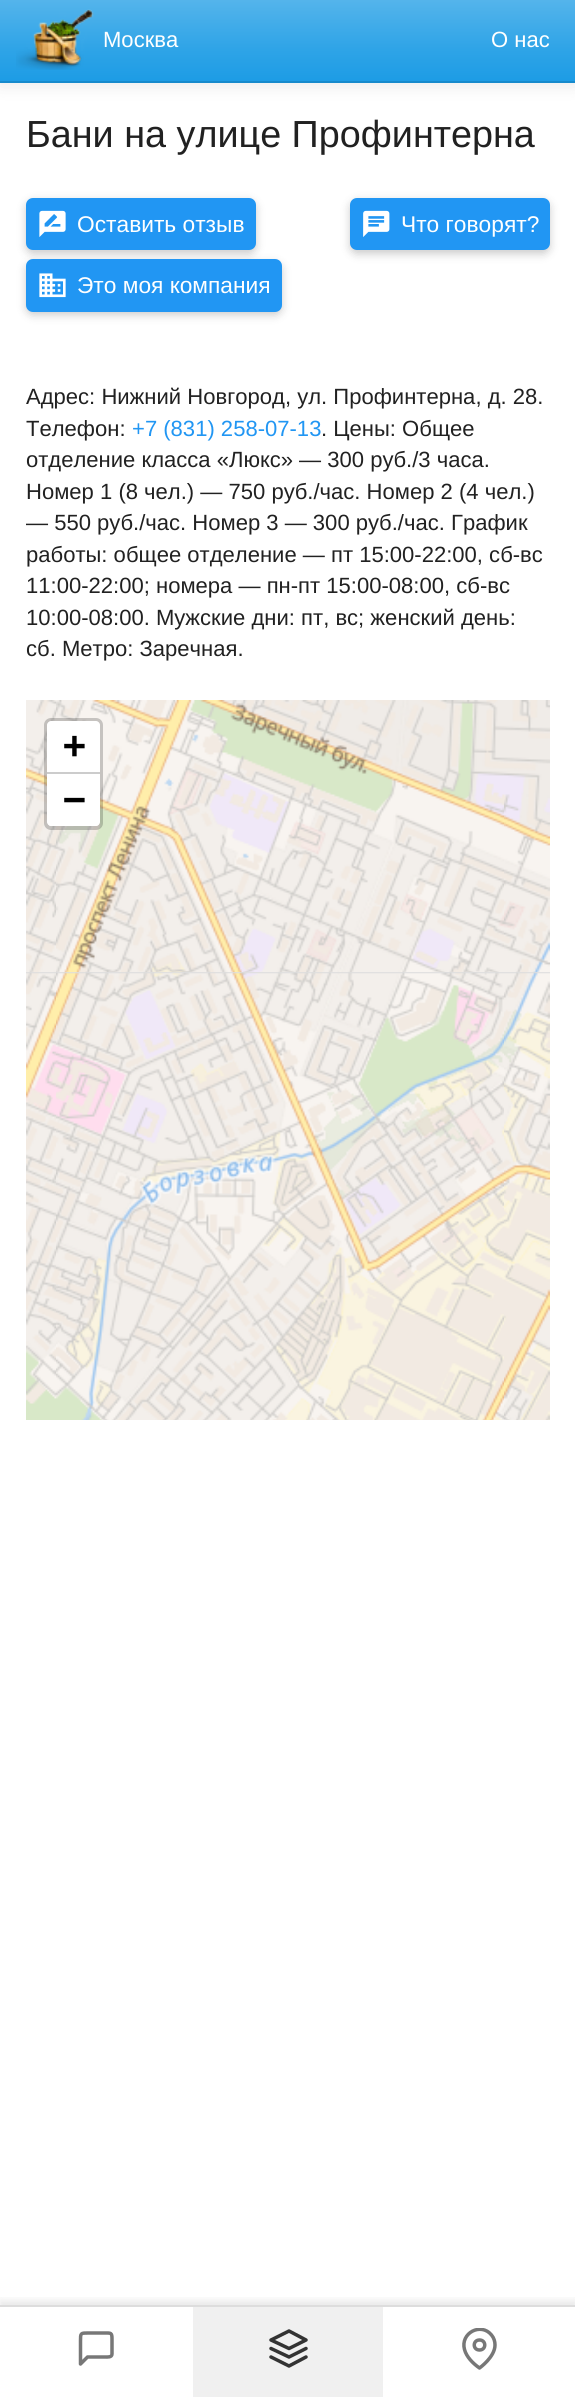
#include <cairo.h>
#include <math.h>
#include <stddef.h>

static cairo_t *ctx;

static void use_color(int r, int g, int b) {
    cairo_set_source_rgb(ctx, r / 255.0, g / 255.0, b / 255.0);
}

static void round_rect(double x, double y, double w, double h, double r) {
    cairo_new_sub_path(ctx);
    cairo_arc(ctx, x + w - r, y + h - r, r, 0, M_PI / 2);
    cairo_arc(ctx, x + r, y + h - r, r, M_PI / 2, M_PI);
    cairo_arc(ctx, x + r, y + r, r, M_PI, 1.5 * M_PI);
    cairo_arc(ctx, x + w - r, y + r, r, 1.5 * M_PI, 2 * M_PI);
    cairo_close_path(ctx);
}

static void shadow(double x, double y, double w, double h, double r, double blur, double alpha) {
    cairo_push_group_with_content(ctx, CAIRO_CONTENT_ALPHA);
    cairo_set_operator(ctx, CAIRO_OPERATOR_SOURCE);
    for (int i = 15; i >= -15 && fmin(w, h) + blur * i / 3 > 0; i -= 2) {
        double e = blur * i / 6;
        cairo_set_source_rgba(ctx, 0, 0, 0, alpha * erfc((i - 1) / 8.5) / 2);
        round_rect(x - e, y - e, w + 2 * e, h + 2 * e, fmax(0, fmin(r + e + blur * .6, fmin(w, h) / 2 + e)));
        cairo_fill(ctx);
    }
    cairo_pattern_t *soft = cairo_pop_group(ctx);
    cairo_mask(ctx, soft);
    cairo_pattern_destroy(soft);
}

static void picture(const char *path, double x, double y, double w, double h) {
    cairo_surface_t *image = cairo_image_surface_create_from_png(path);
    cairo_save(ctx);
    cairo_set_source_surface(ctx, image, x, y);
    cairo_rectangle(ctx, x, y, w, h);
    cairo_fill(ctx);
    cairo_restore(ctx);
    cairo_surface_destroy(image);
}

int main(void) {
    cairo_surface_t *surface = cairo_image_surface_create(CAIRO_FORMAT_RGB24, 575, 2397);
    ctx = cairo_create(surface);
    cairo_font_options_t *options = cairo_font_options_create();
    cairo_font_options_set_hint_metrics(options, CAIRO_HINT_METRICS_OFF);
    cairo_font_options_set_hint_style(options, CAIRO_HINT_STYLE_NONE);
    cairo_set_font_options(ctx, options);
    cairo_set_miter_limit(ctx, 4);
    cairo_pattern_t *gradient;
    use_color(255, 255, 255);
    cairo_paint(ctx);
    use_color(0, 0, 0);
    shadow(0, 2, 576, 82, 0, 9, 0.1);
    gradient = cairo_pattern_create_linear(288, 0, 288, 81);
    cairo_pattern_add_color_stop_rgba(gradient, 0, 0.329, 0.706, 0.922, 1);
    cairo_pattern_add_color_stop_rgba(gradient, 0.6, 0.184, 0.643, 0.906, 1);
    cairo_pattern_add_color_stop_rgba(gradient, 1, 0.114, 0.612, 0.898, 1);
    cairo_set_source(ctx, gradient);
    cairo_pattern_destroy(gradient);
    cairo_rectangle(ctx, 0, 0, 575, 81);
    cairo_fill(ctx);
    use_color(23, 138, 204);
    cairo_rectangle(ctx, 0, 81, 575, 2);
    cairo_fill(ctx);
    picture("img1.png", 16, 9, 78, 61);
    cairo_select_font_face(ctx, "Liberation Sans", CAIRO_FONT_SLANT_NORMAL, CAIRO_FONT_WEIGHT_NORMAL);
    cairo_set_font_size(ctx, 22.05);
    use_color(255, 255, 255);
    cairo_move_to(ctx, 103, 47);
    cairo_show_text(ctx, "Москва");
    cairo_move_to(ctx, 491, 47);
    cairo_show_text(ctx, "О нас");
    cairo_set_font_size(ctx, 37.75);
    use_color(33, 33, 33);
    cairo_move_to(ctx, 26, 147);
    cairo_show_text(ctx, "Бани на улице Профинтерна");
    use_color(0, 0, 0);
    shadow(26, 201, 230, 53, 7, 4.5, 0.2);
    use_color(33, 150, 243);
    round_rect(26, 198, 230, 52, 7);
    cairo_fill(ctx);
    picture("img2.png", 39, 210, 27, 27);
    cairo_set_font_size(ctx, 22.75);
    use_color(255, 255, 255);
    cairo_move_to(ctx, 77, 232);
    cairo_show_text(ctx, "Оставить отзыв");
    use_color(0, 0, 0);
    shadow(350, 201, 200, 53, 7, 4.5, 0.2);
    use_color(33, 150, 243);
    round_rect(350, 198, 200, 52, 7);
    cairo_fill(ctx);
    picture("img3.png", 363, 210, 27, 27);
    use_color(255, 255, 255);
    cairo_move_to(ctx, 401, 232);
    cairo_show_text(ctx, "Что говорят?");
    use_color(0, 0, 0);
    shadow(26, 263, 256, 52, 7, 4.5, 0.2);
    use_color(33, 150, 243);
    round_rect(26, 259, 256, 53, 7);
    cairo_fill(ctx);
    picture("img4.png", 39, 273, 27, 25);
    use_color(255, 255, 255);
    cairo_move_to(ctx, 77, 293);
    cairo_show_text(ctx, "Это моя компания");
    cairo_set_font_size(ctx, 22.05);
    use_color(33, 33, 33);
    cairo_move_to(ctx, 26, 404);
    cairo_show_text(ctx, "Адрес: Нижний Новгород, ул. Профинтерна, д. 28.");
    cairo_move_to(ctx, 26, 436);
    cairo_show_text(ctx, "Телефон:");
    use_color(33, 150, 243);
    cairo_move_to(ctx, 132, 436);
    cairo_show_text(ctx, "+7 (831) 258-07-13");
    use_color(33, 33, 33);
    cairo_move_to(ctx, 321, 436);
    cairo_show_text(ctx, ". Цены: Общее");
    cairo_move_to(ctx, 26, 467);
    cairo_show_text(ctx, "отделение класса «Люкс» — 300 руб./3 часа.");
    cairo_move_to(ctx, 26, 499);
    cairo_show_text(ctx, "Номер 1 (8 чел.) — 750 руб./час. Номер 2 (4 чел.)");
    cairo_move_to(ctx, 26, 530);
    cairo_show_text(ctx, "— 550 руб./час. Номер 3 — 300 руб./час. График");
    cairo_move_to(ctx, 26, 562);
    cairo_show_text(ctx, "работы: общее отделение — пт 15:00-22:00, сб-вс");
    cairo_move_to(ctx, 26, 593);
    cairo_show_text(ctx, "11:00-22:00; номера — пн-пт 15:00-08:00, сб-вс");
    cairo_move_to(ctx, 26, 625);
    cairo_show_text(ctx, "10:00-08:00. Мужские дни: пт, вс; женский день:");
    cairo_move_to(ctx, 26, 656);
    cairo_show_text(ctx, "сб. Метро: Заречная.");
    use_color(221, 221, 221);
    cairo_rectangle(ctx, 26, 972, 524, 2);
    cairo_fill(ctx);
    picture("img5.png", 26, 700, 30, 272);
    picture("img6.png", 56, 700, 448, 272);
    picture("img7.png", 504, 700, 46, 272);
    picture("img8.png", 26, 972, 30, 448);
    picture("img9.png", 56, 972, 448, 448);
    picture("img10.png", 504, 972, 46, 448);
    round_rect(46, 720, 55, 108, 5);
    cairo_set_source_rgba(ctx, 0, 0, 0, 0.2);
    cairo_set_line_width(ctx, 4);
    cairo_stroke(ctx);
    use_color(255, 255, 255);
    cairo_new_path(ctx);
    cairo_move_to(ctx, 51, 721);
    cairo_line_to(ctx, 96, 721);
    cairo_curve_to(ctx, 98, 721, 100, 723, 100, 725);
    cairo_line_to(ctx, 100, 774);
    cairo_line_to(ctx, 47, 774);
    cairo_line_to(ctx, 47, 725);
    cairo_curve_to(ctx, 47, 723, 49, 721, 51, 721);
    cairo_close_path(ctx);
    cairo_fill(ctx);
    use_color(204, 204, 204);
    cairo_rectangle(ctx, 47, 772, 53, 2);
    cairo_fill(ctx);
    cairo_select_font_face(ctx, "DejaVu Sans Mono", CAIRO_FONT_SLANT_NORMAL, CAIRO_FONT_WEIGHT_BOLD);
    cairo_set_font_size(ctx, 38);
    use_color(0, 0, 0);
    cairo_move_to(ctx, 63, 758);
    cairo_show_text(ctx, "+");
    use_color(255, 255, 255);
    cairo_new_path(ctx);
    cairo_move_to(ctx, 47, 774);
    cairo_line_to(ctx, 100, 774);
    cairo_line_to(ctx, 100, 822);
    cairo_curve_to(ctx, 100, 824, 98, 826, 96, 826);
    cairo_line_to(ctx, 51, 826);
    cairo_curve_to(ctx, 49, 826, 47, 824, 47, 822);
    cairo_close_path(ctx);
    cairo_fill(ctx);
    use_color(0, 0, 0);
    cairo_move_to(ctx, 63, 812);
    cairo_show_text(ctx, "−");
    cairo_save(ctx);
    cairo_rectangle(ctx, 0, 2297, 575, 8);
    cairo_clip(ctx);
    use_color(0, 0, 0);
    shadow(0, 2301, 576, 93, 0, 4.5, 0.1);
    cairo_restore(ctx);
    use_color(221, 221, 221);
    cairo_rectangle(ctx, 0, 2305, 575, 2);
    cairo_fill(ctx);
    cairo_new_path(ctx);
    cairo_move_to(ctx, 112, 2354);
    cairo_curve_to(ctx, 112, 2357.5, 107.5, 2357, 105, 2357);
    cairo_line_to(ctx, 87.5, 2357);
    cairo_line_to(ctx, 80.5, 2364);
    cairo_line_to(ctx, 80.5, 2341);
    cairo_curve_to(ctx, 80.5, 2333, 80.5, 2333, 88, 2333);
    cairo_line_to(ctx, 104.5, 2333);
    cairo_curve_to(ctx, 111, 2333, 112, 2332.5, 112, 2339);
    cairo_close_path(ctx);
    use_color(119, 119, 119);
    cairo_set_line_width(ctx, 3.5);
    cairo_set_line_cap(ctx, CAIRO_LINE_CAP_ROUND);
    cairo_set_line_join(ctx, CAIRO_LINE_JOIN_ROUND);
    cairo_stroke(ctx);
    use_color(240, 240, 240);
    cairo_rectangle(ctx, 193, 2307, 190, 90);
    cairo_fill(ctx);
    cairo_new_path(ctx);
    cairo_move_to(ctx, 289, 2331);
    cairo_line_to(ctx, 271, 2340);
    cairo_line_to(ctx, 289, 2348.5);
    cairo_line_to(ctx, 306, 2340);
    cairo_close_path(ctx);
    cairo_move_to(ctx, 271, 2357);
    cairo_line_to(ctx, 289, 2366);
    cairo_line_to(ctx, 306, 2357);
    cairo_move_to(ctx, 271, 2348.5);
    cairo_line_to(ctx, 289, 2357);
    cairo_line_to(ctx, 306, 2348.5);
    use_color(51, 51, 51);
    cairo_stroke(ctx);
    cairo_save(ctx);
    cairo_rectangle(ctx, 459, 2328, 42, 42);
    cairo_clip(ctx);
    cairo_new_path(ctx);
    cairo_move_to(ctx, 495, 2345);
    cairo_curve_to(ctx, 495, 2357, 479.5, 2368, 479.5, 2368);
    cairo_curve_to(ctx, 473, 2363.5, 466.5, 2357, 464.5, 2349.5);
    cairo_curve_to(ctx, 460, 2333, 481, 2322, 491.5, 2335);
    cairo_curve_to(ctx, 494, 2338, 495, 2341.5, 495, 2345);
    cairo_close_path(ctx);
    use_color(119, 119, 119);
    cairo_stroke(ctx);
    cairo_restore(ctx);
    cairo_new_path(ctx);
    cairo_move_to(ctx, 479.5, 2350);
    cairo_curve_to(ctx, 486.5, 2350, 486.5, 2340, 479.5, 2340);
    cairo_curve_to(ctx, 472.5, 2340, 472.5, 2350, 479.5, 2350);
    cairo_close_path(ctx);
    use_color(119, 119, 119);
    cairo_stroke(ctx);
    cairo_surface_write_to_png(surface, "result.png");
    cairo_font_options_destroy(options);
    cairo_destroy(ctx);
    cairo_surface_destroy(surface);
    return 0;
}
